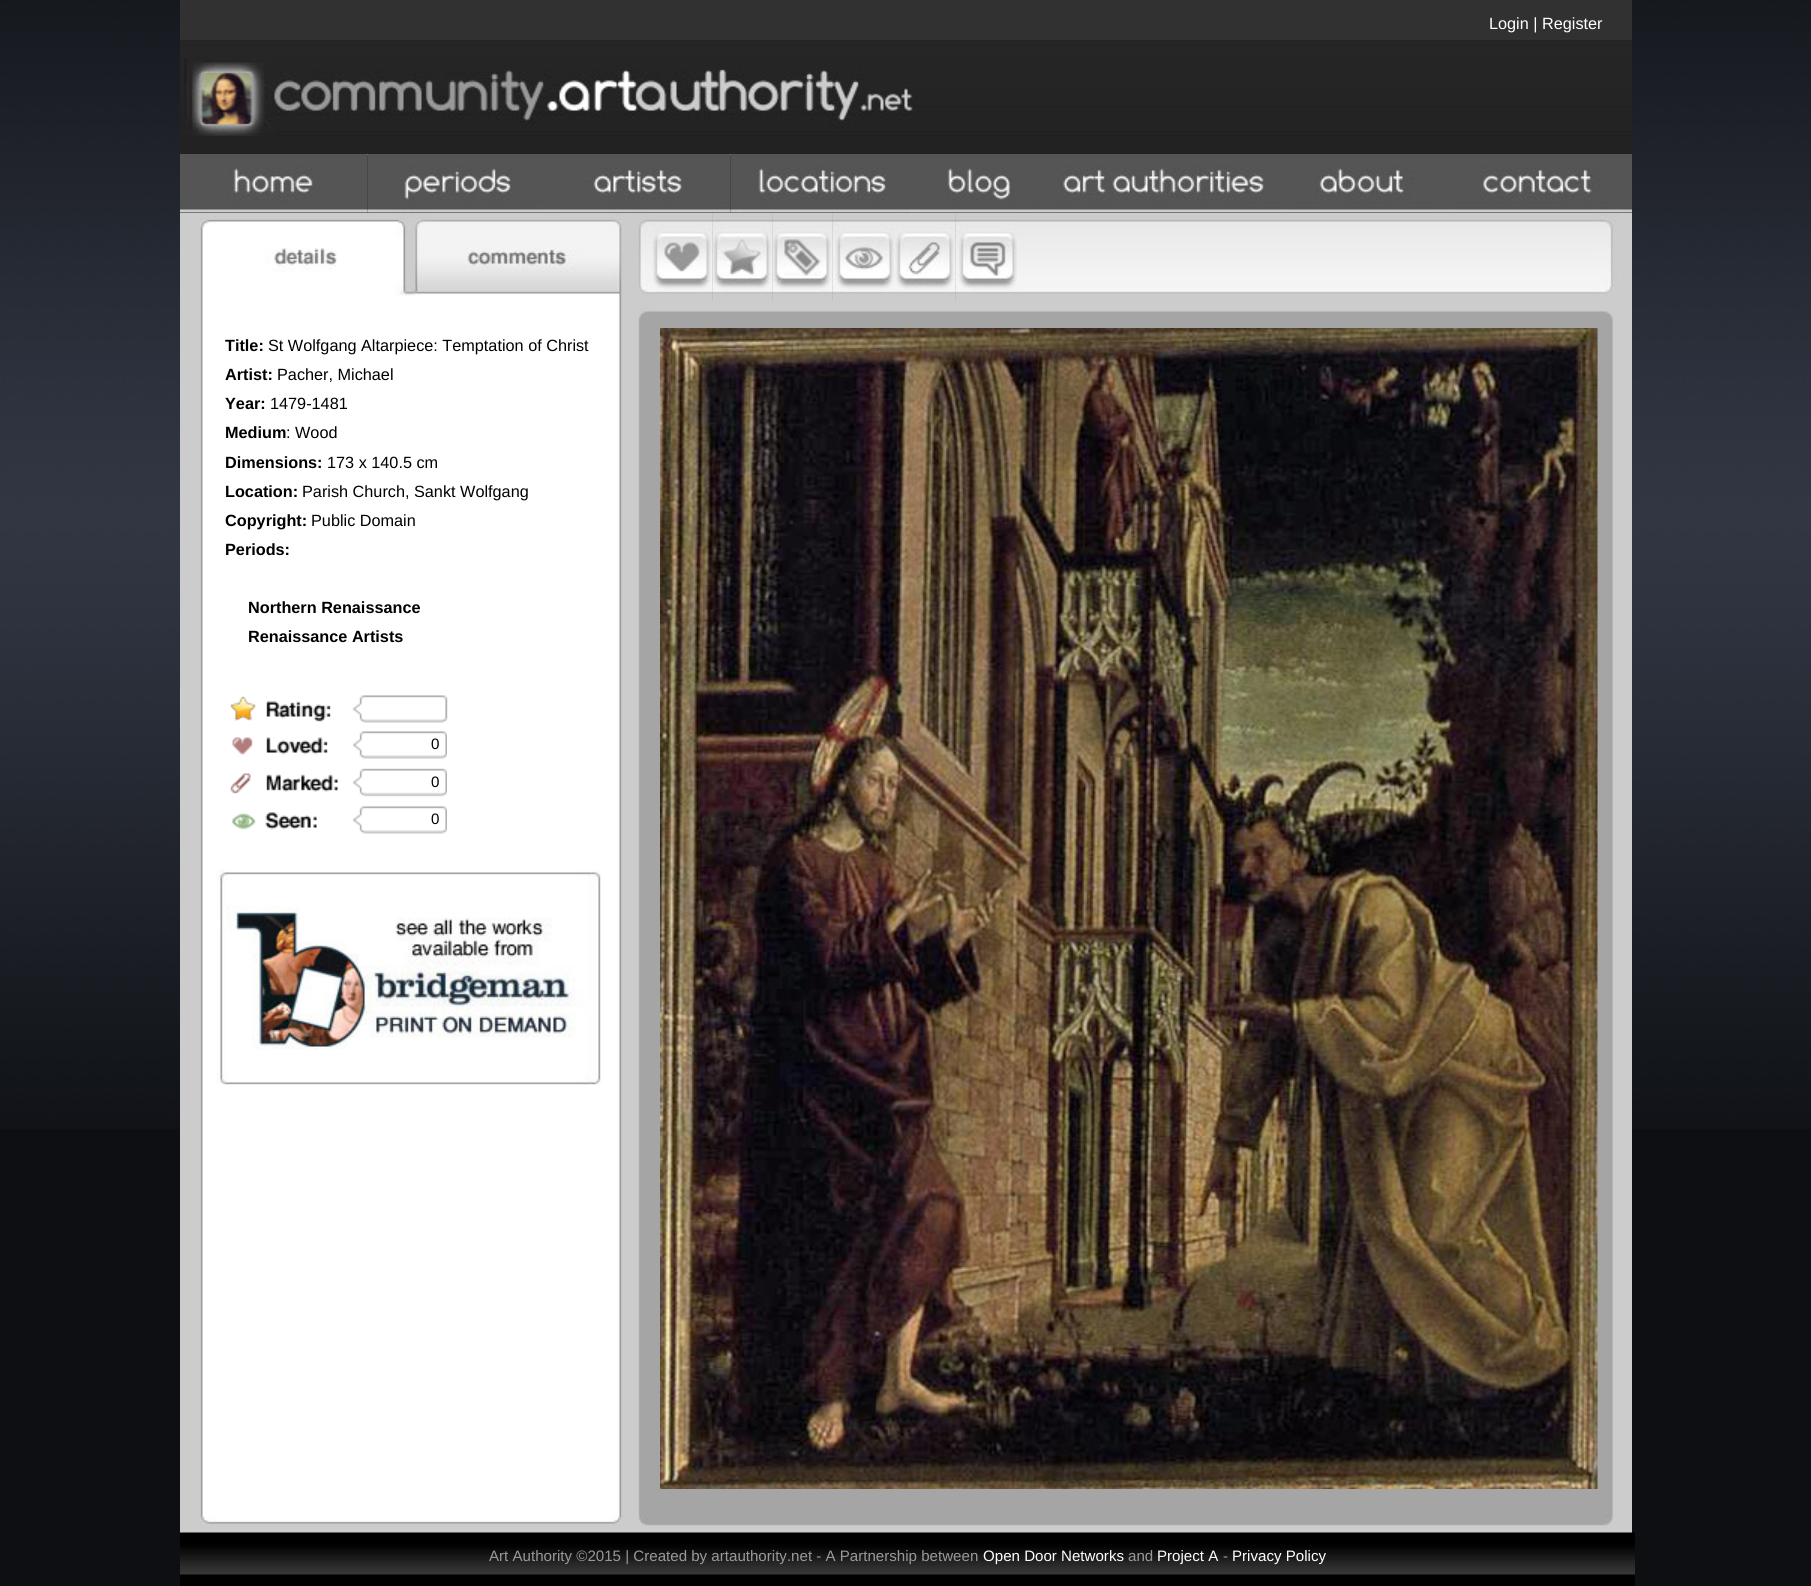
#include <cairo.h>
#include <math.h>
#include <stddef.h>

static cairo_t *ctx;

static void use_color(int r, int g, int b) {
    cairo_set_source_rgb(ctx, r / 255.0, g / 255.0, b / 255.0);
}

static void picture(const char *path, double x, double y, double w, double h) {
    cairo_surface_t *image = cairo_image_surface_create_from_png(path);
    cairo_save(ctx);
    cairo_set_source_surface(ctx, image, x, y);
    cairo_rectangle(ctx, x, y, w, h);
    cairo_fill(ctx);
    cairo_restore(ctx);
    cairo_surface_destroy(image);
}

int main(void) {
    cairo_surface_t *surface = cairo_image_surface_create(CAIRO_FORMAT_RGB24, 1811, 1586);
    ctx = cairo_create(surface);
    cairo_font_options_t *options = cairo_font_options_create();
    cairo_font_options_set_hint_metrics(options, CAIRO_HINT_METRICS_OFF);
    cairo_font_options_set_hint_style(options, CAIRO_HINT_STYLE_NONE);
    cairo_set_font_options(ctx, options);
    cairo_set_miter_limit(ctx, 4);
    use_color(14, 15, 19);
    cairo_paint(ctx);
    picture("img1.png", 0, 0, 1811, 1129);
    use_color(204, 204, 204);
    cairo_rectangle(ctx, 180, 154, 1452, 1379);
    cairo_fill(ctx);
    picture("img2.png", 180, 0, 1452, 154);
    cairo_select_font_face(ctx, "Liberation Sans", CAIRO_FONT_SLANT_NORMAL, CAIRO_FONT_WEIGHT_NORMAL);
    cairo_set_font_size(ctx, 16.25);
    use_color(255, 255, 255);
    cairo_move_to(ctx, 1489, 29);
    cairo_show_text(ctx, "Login | Register");
    picture("img3.png", 180, 58, 733, 78);
    use_color(35, 35, 35);
    cairo_rectangle(ctx, 180, 155, 1452, 58);
    cairo_fill(ctx);
    picture("img4.png", 180, 154, 188, 59);
    picture("img5.png", 367, 154, 182, 59);
    picture("img6.png", 549, 154, 182, 59);
    picture("img7.png", 730, 154, 182, 59);
    picture("img8.png", 912, 154, 135, 59);
    picture("img9.png", 1047, 154, 234, 59);
    picture("img10.png", 1281, 154, 162, 59);
    picture("img11.png", 1443, 154, 189, 59);
    picture("img12.png", 200, 213, 1413, 1291);
    picture("img13.png", 200, 213, 422, 83);
    cairo_select_font_face(ctx, "Liberation Sans", CAIRO_FONT_SLANT_NORMAL, CAIRO_FONT_WEIGHT_BOLD);
    use_color(0, 0, 0);
    cairo_move_to(ctx, 225, 351);
    cairo_show_text(ctx, "Title:");
    cairo_select_font_face(ctx, "Liberation Sans", CAIRO_FONT_SLANT_NORMAL, CAIRO_FONT_WEIGHT_NORMAL);
    cairo_move_to(ctx, 268, 351);
    cairo_show_text(ctx, "St Wolfgang Altarpiece: Temptation of Christ");
    cairo_select_font_face(ctx, "Liberation Sans", CAIRO_FONT_SLANT_NORMAL, CAIRO_FONT_WEIGHT_BOLD);
    cairo_move_to(ctx, 225, 380);
    cairo_show_text(ctx, "Artist:");
    cairo_select_font_face(ctx, "Liberation Sans", CAIRO_FONT_SLANT_NORMAL, CAIRO_FONT_WEIGHT_NORMAL);
    cairo_move_to(ctx, 277, 380);
    cairo_show_text(ctx, "Pacher, Michael");
    cairo_select_font_face(ctx, "Liberation Sans", CAIRO_FONT_SLANT_NORMAL, CAIRO_FONT_WEIGHT_BOLD);
    cairo_move_to(ctx, 225, 409);
    cairo_show_text(ctx, "Year:");
    cairo_select_font_face(ctx, "Liberation Sans", CAIRO_FONT_SLANT_NORMAL, CAIRO_FONT_WEIGHT_NORMAL);
    cairo_move_to(ctx, 270, 409);
    cairo_show_text(ctx, "1479-1481");
    cairo_select_font_face(ctx, "Liberation Sans", CAIRO_FONT_SLANT_NORMAL, CAIRO_FONT_WEIGHT_BOLD);
    cairo_move_to(ctx, 225, 438);
    cairo_show_text(ctx, "Medium");
    cairo_select_font_face(ctx, "Liberation Sans", CAIRO_FONT_SLANT_NORMAL, CAIRO_FONT_WEIGHT_NORMAL);
    cairo_move_to(ctx, 286, 438);
    cairo_show_text(ctx, ": Wood");
    cairo_select_font_face(ctx, "Liberation Sans", CAIRO_FONT_SLANT_NORMAL, CAIRO_FONT_WEIGHT_BOLD);
    cairo_move_to(ctx, 225, 468);
    cairo_show_text(ctx, "Dimensions:");
    cairo_select_font_face(ctx, "Liberation Sans", CAIRO_FONT_SLANT_NORMAL, CAIRO_FONT_WEIGHT_NORMAL);
    cairo_move_to(ctx, 327, 468);
    cairo_show_text(ctx, "173 x 140.5 cm");
    cairo_select_font_face(ctx, "Liberation Sans", CAIRO_FONT_SLANT_NORMAL, CAIRO_FONT_WEIGHT_BOLD);
    cairo_move_to(ctx, 225, 497);
    cairo_show_text(ctx, "Location:");
    cairo_select_font_face(ctx, "Liberation Sans", CAIRO_FONT_SLANT_NORMAL, CAIRO_FONT_WEIGHT_NORMAL);
    cairo_move_to(ctx, 302, 497);
    cairo_show_text(ctx, "Parish Church, Sankt Wolfgang");
    cairo_select_font_face(ctx, "Liberation Sans", CAIRO_FONT_SLANT_NORMAL, CAIRO_FONT_WEIGHT_BOLD);
    cairo_move_to(ctx, 225, 526);
    cairo_show_text(ctx, "Copyright:");
    cairo_select_font_face(ctx, "Liberation Sans", CAIRO_FONT_SLANT_NORMAL, CAIRO_FONT_WEIGHT_NORMAL);
    cairo_move_to(ctx, 311, 526);
    cairo_show_text(ctx, "Public Domain");
    cairo_select_font_face(ctx, "Liberation Sans", CAIRO_FONT_SLANT_NORMAL, CAIRO_FONT_WEIGHT_BOLD);
    cairo_move_to(ctx, 225, 555);
    cairo_show_text(ctx, "Periods:");
    cairo_move_to(ctx, 248, 613);
    cairo_show_text(ctx, "Northern Renaissance");
    cairo_move_to(ctx, 248, 642);
    cairo_show_text(ctx, "Renaissance Artists");
    picture("img14.png", 180, 689, 268, 38);
    picture("img15.png", 232, 731, 215, 28);
    cairo_select_font_face(ctx, "Liberation Sans", CAIRO_FONT_SLANT_NORMAL, CAIRO_FONT_WEIGHT_NORMAL);
    cairo_set_font_size(ctx, 15.1);
    cairo_move_to(ctx, 431, 749);
    cairo_show_text(ctx, "0");
    picture("img16.png", 230, 768, 217, 29);
    cairo_move_to(ctx, 431, 787);
    cairo_show_text(ctx, "0");
    picture("img17.png", 232, 806, 215, 28);
    cairo_move_to(ctx, 431, 824);
    cairo_show_text(ctx, "0");
    picture("img18.png", 216, 869, 385, 216);
    picture("img19.png", 638, 213, 75, 88);
    picture("img20.png", 712, 213, 61, 88);
    picture("img21.png", 772, 213, 61, 88);
    picture("img22.png", 832, 213, 62, 88);
    picture("img23.png", 894, 213, 62, 88);
    picture("img24.png", 955, 213, 62, 88);
    picture("img25.png", 1017, 213, 601, 88);
    picture("img26.png", 638, 301, 975, 18);
    picture("img27.png", 660, 328, 938, 1161);
    picture("img28.png", 200, 1504, 1413, 22);
    picture("img29.png", 180, 1532, 1455, 54);
    use_color(153, 153, 153);
    cairo_move_to(ctx, 489, 1561);
    cairo_show_text(ctx, "Art Authority ©2015 | Created by artauthority.net - A Partnership between");
    use_color(255, 255, 255);
    cairo_move_to(ctx, 983, 1561);
    cairo_show_text(ctx, "Open Door Networks");
    use_color(153, 153, 153);
    cairo_move_to(ctx, 1128, 1561);
    cairo_show_text(ctx, "and");
    use_color(255, 255, 255);
    cairo_move_to(ctx, 1157, 1561);
    cairo_show_text(ctx, "Project A");
    use_color(153, 153, 153);
    cairo_move_to(ctx, 1223, 1561);
    cairo_show_text(ctx, "-");
    use_color(255, 255, 255);
    cairo_move_to(ctx, 1232, 1561);
    cairo_show_text(ctx, "Privacy Policy");
    cairo_surface_write_to_png(surface, "result.png");
    cairo_font_options_destroy(options);
    cairo_destroy(ctx);
    cairo_surface_destroy(surface);
    return 0;
}
